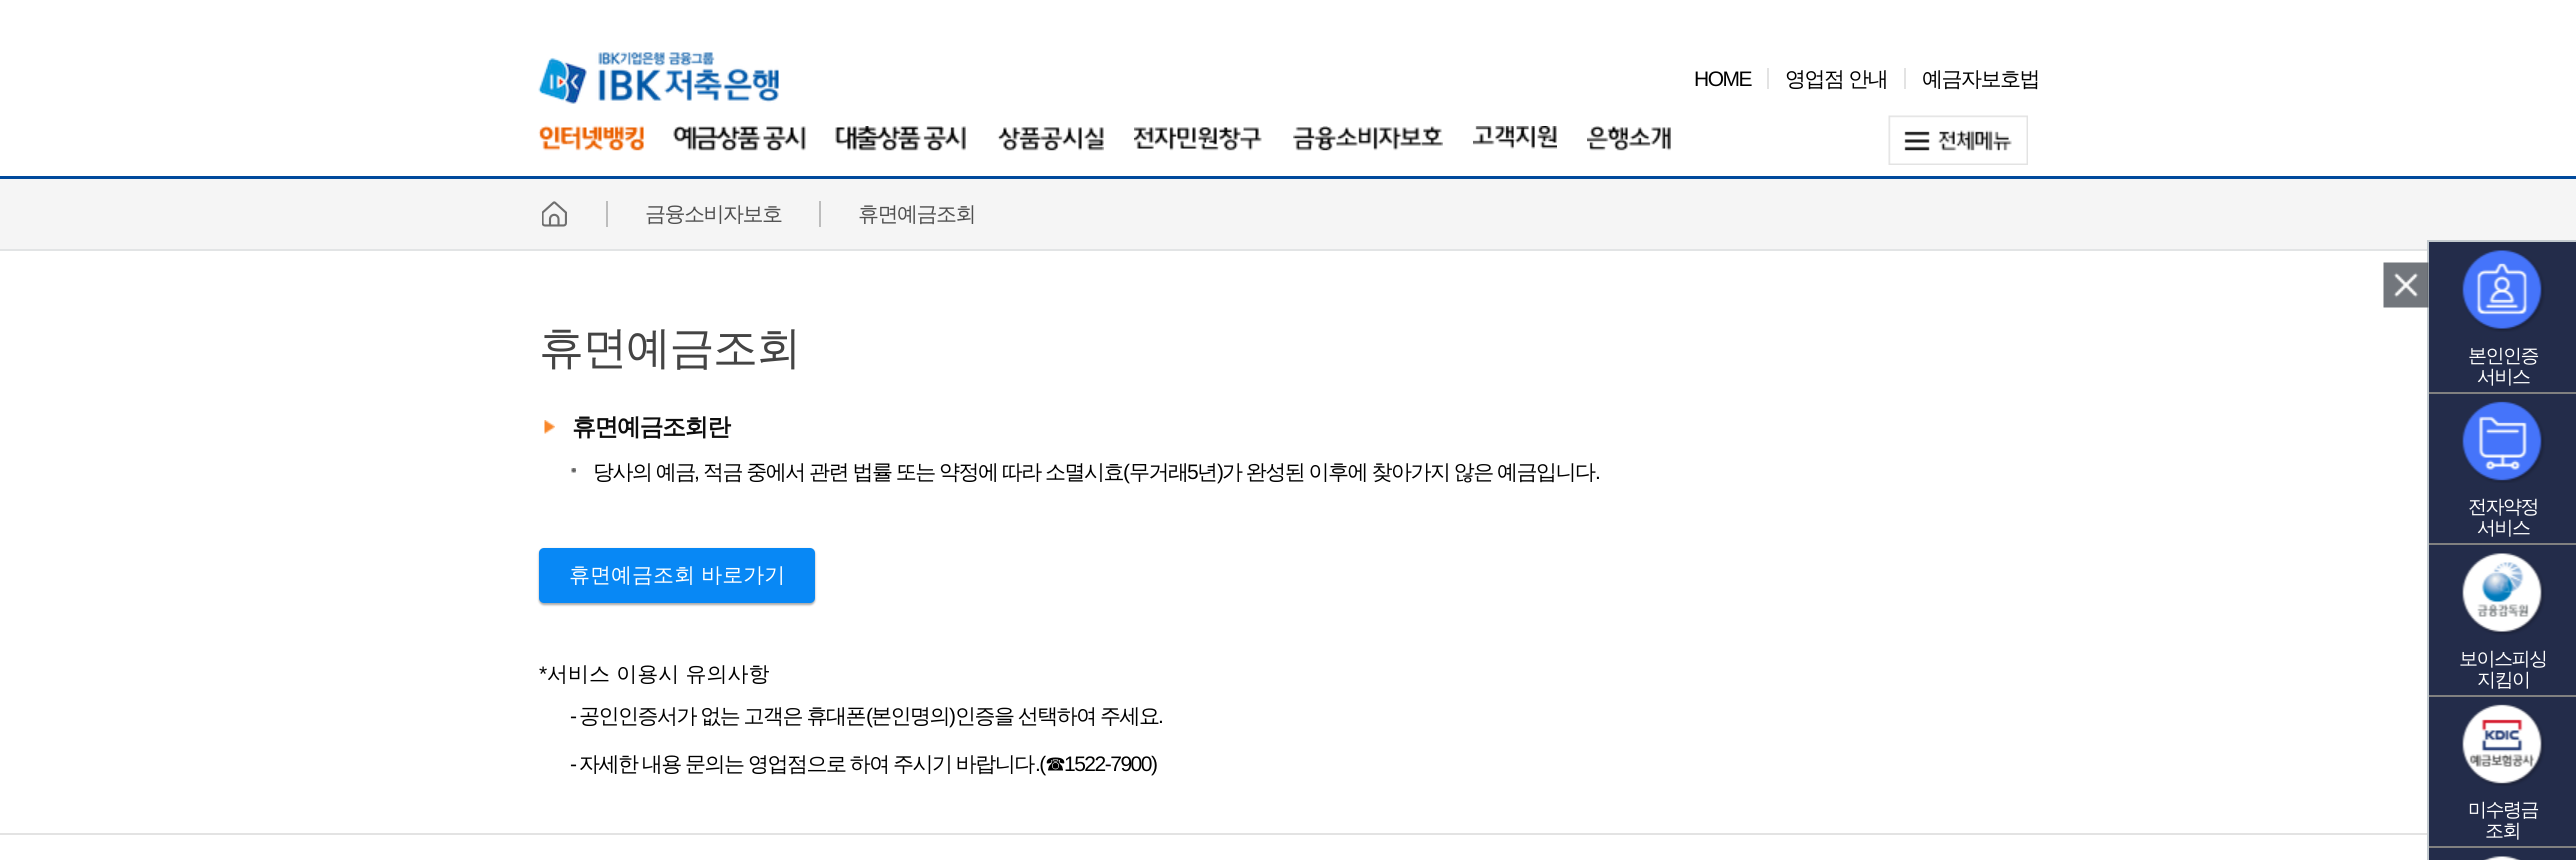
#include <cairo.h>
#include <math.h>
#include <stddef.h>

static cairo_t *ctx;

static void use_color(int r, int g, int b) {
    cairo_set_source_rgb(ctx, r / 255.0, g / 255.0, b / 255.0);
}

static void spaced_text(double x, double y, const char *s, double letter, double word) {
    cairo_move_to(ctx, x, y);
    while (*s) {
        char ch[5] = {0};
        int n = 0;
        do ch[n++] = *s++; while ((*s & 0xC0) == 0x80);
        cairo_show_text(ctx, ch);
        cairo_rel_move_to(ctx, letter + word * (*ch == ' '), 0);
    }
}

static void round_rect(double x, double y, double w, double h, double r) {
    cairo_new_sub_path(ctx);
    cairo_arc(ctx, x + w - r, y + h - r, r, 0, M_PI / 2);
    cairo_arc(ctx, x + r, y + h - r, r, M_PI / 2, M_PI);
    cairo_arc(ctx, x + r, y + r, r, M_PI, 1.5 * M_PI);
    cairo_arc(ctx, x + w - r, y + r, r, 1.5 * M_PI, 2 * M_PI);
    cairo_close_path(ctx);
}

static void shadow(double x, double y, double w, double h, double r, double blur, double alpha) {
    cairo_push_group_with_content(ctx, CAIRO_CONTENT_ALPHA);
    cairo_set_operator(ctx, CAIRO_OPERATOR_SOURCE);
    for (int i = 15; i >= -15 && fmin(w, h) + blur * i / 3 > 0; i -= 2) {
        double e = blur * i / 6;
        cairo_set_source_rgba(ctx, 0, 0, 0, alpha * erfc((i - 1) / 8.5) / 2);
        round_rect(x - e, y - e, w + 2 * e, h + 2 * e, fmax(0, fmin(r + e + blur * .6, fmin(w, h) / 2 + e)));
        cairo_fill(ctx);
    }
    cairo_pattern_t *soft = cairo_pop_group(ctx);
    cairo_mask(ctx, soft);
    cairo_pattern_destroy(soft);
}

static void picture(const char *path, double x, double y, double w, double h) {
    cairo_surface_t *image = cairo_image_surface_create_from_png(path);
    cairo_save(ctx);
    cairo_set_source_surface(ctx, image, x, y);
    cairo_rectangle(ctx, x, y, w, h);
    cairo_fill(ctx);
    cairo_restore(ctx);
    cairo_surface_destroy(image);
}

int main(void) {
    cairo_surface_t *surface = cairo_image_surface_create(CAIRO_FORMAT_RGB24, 2576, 860);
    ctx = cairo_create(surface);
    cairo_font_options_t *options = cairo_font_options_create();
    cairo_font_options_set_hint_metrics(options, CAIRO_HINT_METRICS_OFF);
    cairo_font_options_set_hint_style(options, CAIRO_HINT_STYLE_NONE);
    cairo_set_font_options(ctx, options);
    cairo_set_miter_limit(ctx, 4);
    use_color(255, 255, 255);
    cairo_paint(ctx);
    picture("img1.png", 538, 52, 241, 52);
    cairo_select_font_face(ctx, "Liberation Sans", CAIRO_FONT_SLANT_NORMAL, CAIRO_FONT_WEIGHT_NORMAL);
    cairo_set_font_size(ctx, 21);
    use_color(0, 0, 0);
    spaced_text(1694, 86, "HOME", -1.5, 0);
    use_color(227, 227, 227);
    cairo_rectangle(ctx, 1767, 68, 2, 21);
    cairo_fill(ctx);
    cairo_select_font_face(ctx, "WenQuanYi Zen Hei Medium", CAIRO_FONT_SLANT_NORMAL, CAIRO_FONT_WEIGHT_NORMAL);
    use_color(0, 0, 0);
    spaced_text(1785, 86, "영업점 안내", -1.5, 0);
    use_color(227, 227, 227);
    cairo_rectangle(ctx, 1904, 68, 2, 21);
    cairo_fill(ctx);
    use_color(0, 0, 0);
    spaced_text(1922, 86, "예금자보호법", -1.5, 0);
    use_color(0, 73, 156);
    cairo_rectangle(ctx, 0, 176, 2576, 3);
    cairo_fill(ctx);
    picture("img2.png", 538, 125, 106, 26);
    picture("img3.png", 673, 126, 133, 25);
    picture("img4.png", 835, 126, 131, 25);
    picture("img5.png", 997, 127, 107, 24);
    picture("img6.png", 1134, 127, 128, 24);
    picture("img7.png", 1293, 126, 150, 25);
    picture("img8.png", 1473, 126, 84, 23);
    picture("img9.png", 1587, 126, 84, 25);
    picture("img10.png", 1888, 115, 140, 50);
    use_color(245, 245, 245);
    cairo_rectangle(ctx, 0, 179, 2576, 70);
    cairo_fill(ctx);
    use_color(226, 228, 229);
    cairo_rectangle(ctx, 0, 249, 2427, 2);
    cairo_fill(ctx);
    picture("img11.png", 542, 201, 25, 26);
    use_color(189, 189, 189);
    cairo_rectangle(ctx, 606, 201, 2, 26);
    cairo_fill(ctx);
    use_color(80, 80, 80);
    spaced_text(645, 221, "금융소비자보호", -1.5, 0);
    use_color(189, 189, 189);
    cairo_rectangle(ctx, 819, 201, 2, 26);
    cairo_fill(ctx);
    use_color(80, 80, 80);
    spaced_text(858, 221, "휴면예금조회", -1.5, 0);
    cairo_set_font_size(ctx, 45);
    use_color(68, 68, 68);
    spaced_text(539, 363, "휴면예금조회", -1.5, 0);
    picture("img12.png", 544, 420, 11, 14);
    cairo_select_font_face(ctx, "WenQuanYi Zen Hei", CAIRO_FONT_SLANT_NORMAL, CAIRO_FONT_WEIGHT_BOLD);
    cairo_set_font_size(ctx, 24);
    use_color(14, 14, 14);
    spaced_text(572, 435, "휴면예금조회란", -1.5, 0);
    picture("img13.png", 571, 468, 5, 5);
    cairo_select_font_face(ctx, "WenQuanYi Zen Hei Medium", CAIRO_FONT_SLANT_NORMAL, CAIRO_FONT_WEIGHT_NORMAL);
    cairo_set_font_size(ctx, 21);
    use_color(0, 0, 0);
    spaced_text(593, 479, "당사의 예금", -1.5, -0.5);
    spaced_text(703, 479, "적금 중에서 관련 법률 또는 약정에 따라 소멸시효", -1.5, -0.5);
    cairo_select_font_face(ctx, "Liberation Sans", CAIRO_FONT_SLANT_NORMAL, CAIRO_FONT_WEIGHT_NORMAL);
    spaced_text(1123, 479, "(", -1.5, 0);
    cairo_select_font_face(ctx, "WenQuanYi Zen Hei Medium", CAIRO_FONT_SLANT_NORMAL, CAIRO_FONT_WEIGHT_NORMAL);
    spaced_text(1129, 479, "무거래", -1.5, 0);
    cairo_select_font_face(ctx, "Liberation Sans", CAIRO_FONT_SLANT_NORMAL, CAIRO_FONT_WEIGHT_NORMAL);
    spaced_text(1187, 479, "5", -1.5, 0);
    cairo_select_font_face(ctx, "WenQuanYi Zen Hei Medium", CAIRO_FONT_SLANT_NORMAL, CAIRO_FONT_WEIGHT_NORMAL);
    spaced_text(1197, 479, "년", -1.5, 0);
    cairo_select_font_face(ctx, "Liberation Sans", CAIRO_FONT_SLANT_NORMAL, CAIRO_FONT_WEIGHT_NORMAL);
    spaced_text(1217, 479, ")", -1.5, 0);
    cairo_select_font_face(ctx, "WenQuanYi Zen Hei Medium", CAIRO_FONT_SLANT_NORMAL, CAIRO_FONT_WEIGHT_NORMAL);
    spaced_text(1222, 479, "가 완성된 이후에 찾아가지 않은 예금입니다", -1.5, -0.5);
    cairo_select_font_face(ctx, "Liberation Sans", CAIRO_FONT_SLANT_NORMAL, CAIRO_FONT_WEIGHT_NORMAL);
    spaced_text(694, 479, ",", -1.5, 0);
    spaced_text(1595, 479, ".", -1.5, 0);
    use_color(170, 170, 170);
    shadow(539, 549, 276, 56, 5, 1, 1);
    use_color(8, 136, 245);
    round_rect(539, 548, 276, 55, 5);
    cairo_fill(ctx);
    cairo_select_font_face(ctx, "WenQuanYi Zen Hei Medium", CAIRO_FONT_SLANT_NORMAL, CAIRO_FONT_WEIGHT_NORMAL);
    use_color(255, 255, 255);
    cairo_move_to(ctx, 569, 582);
    cairo_show_text(ctx, "휴면예금조회 바로가기");
    cairo_select_font_face(ctx, "Liberation Sans", CAIRO_FONT_SLANT_NORMAL, CAIRO_FONT_WEIGHT_NORMAL);
    use_color(0, 0, 0);
    cairo_move_to(ctx, 539, 681);
    cairo_show_text(ctx, "*");
    cairo_select_font_face(ctx, "WenQuanYi Zen Hei Medium", CAIRO_FONT_SLANT_NORMAL, CAIRO_FONT_WEIGHT_NORMAL);
    cairo_move_to(ctx, 547, 681);
    cairo_show_text(ctx, "서비스 이용시 유의사항");
    cairo_select_font_face(ctx, "Liberation Sans", CAIRO_FONT_SLANT_NORMAL, CAIRO_FONT_WEIGHT_NORMAL);
    spaced_text(570, 723, "-", -1.5, 0);
    cairo_select_font_face(ctx, "WenQuanYi Zen Hei Medium", CAIRO_FONT_SLANT_NORMAL, CAIRO_FONT_WEIGHT_NORMAL);
    spaced_text(579, 723, "공인인증서가 없는 고객은 휴대폰", -1.5, -0.5);
    cairo_select_font_face(ctx, "Liberation Sans", CAIRO_FONT_SLANT_NORMAL, CAIRO_FONT_WEIGHT_NORMAL);
    spaced_text(866, 723, "(", -1.5, 0);
    cairo_select_font_face(ctx, "WenQuanYi Zen Hei Medium", CAIRO_FONT_SLANT_NORMAL, CAIRO_FONT_WEIGHT_NORMAL);
    spaced_text(871, 723, "본인명의", -1.5, 0);
    cairo_select_font_face(ctx, "Liberation Sans", CAIRO_FONT_SLANT_NORMAL, CAIRO_FONT_WEIGHT_NORMAL);
    spaced_text(949, 723, ")", -1.5, 0);
    cairo_select_font_face(ctx, "WenQuanYi Zen Hei Medium", CAIRO_FONT_SLANT_NORMAL, CAIRO_FONT_WEIGHT_NORMAL);
    spaced_text(955, 723, "인증을 선택하여 주세요", -1.5, -0.5);
    cairo_select_font_face(ctx, "Liberation Sans", CAIRO_FONT_SLANT_NORMAL, CAIRO_FONT_WEIGHT_NORMAL);
    spaced_text(1158, 723, ".", -1.5, 0);
    spaced_text(570, 771, "-", -1.5, 0);
    cairo_select_font_face(ctx, "WenQuanYi Zen Hei Medium", CAIRO_FONT_SLANT_NORMAL, CAIRO_FONT_WEIGHT_NORMAL);
    spaced_text(579, 771, "자세한 내용 문의는 영업점으로 하여 주시기 바랍니다", -1.5, -0.5);
    cairo_select_font_face(ctx, "Liberation Sans", CAIRO_FONT_SLANT_NORMAL, CAIRO_FONT_WEIGHT_NORMAL);
    spaced_text(1035, 771, ".(", -1.5, 0);
    cairo_select_font_face(ctx, "WenQuanYi Zen Hei Medium", CAIRO_FONT_SLANT_NORMAL, CAIRO_FONT_WEIGHT_NORMAL);
    spaced_text(1045, 771, "☎", -1.5, 0);
    cairo_select_font_face(ctx, "Liberation Sans", CAIRO_FONT_SLANT_NORMAL, CAIRO_FONT_WEIGHT_NORMAL);
    spaced_text(1064, 771, "1522-7900)", -1.5, 0);
    use_color(35, 44, 74);
    cairo_rectangle(ctx, 2429, 242, 147, 618);
    cairo_fill(ctx);
    use_color(194, 201, 206);
    cairo_rectangle(ctx, 2427, 240, 2, 620);
    cairo_fill(ctx);
    picture("img14.png", 2383, 262, 46, 46);
    cairo_rectangle(ctx, 2429, 240, 147, 2);
    cairo_fill(ctx);
    use_color(128, 128, 128);
    cairo_rectangle(ctx, 2429, 392, 147, 2);
    cairo_fill(ctx);
    picture("img15.png", 2462, 250, 83, 82);
    cairo_select_font_face(ctx, "WenQuanYi Zen Hei Medium", CAIRO_FONT_SLANT_NORMAL, CAIRO_FONT_WEIGHT_NORMAL);
    cairo_set_font_size(ctx, 19);
    use_color(255, 255, 255);
    spaced_text(2468, 362, "본인인증", -1.5, 0);
    spaced_text(2477, 383, "서비스", -1.5, 0);
    use_color(128, 128, 128);
    cairo_rectangle(ctx, 2429, 543, 147, 2);
    cairo_fill(ctx);
    picture("img16.png", 2462, 401, 83, 82);
    use_color(255, 255, 255);
    spaced_text(2468, 513, "전자약정", -1.5, 0);
    spaced_text(2477, 534, "서비스", -1.5, 0);
    use_color(128, 128, 128);
    cairo_rectangle(ctx, 2429, 695, 147, 2);
    cairo_fill(ctx);
    picture("img17.png", 2462, 553, 83, 82);
    use_color(255, 255, 255);
    spaced_text(2459, 665, "보이스피싱", -1.5, 0);
    spaced_text(2477, 686, "지킴이", -1.5, 0);
    use_color(128, 128, 128);
    cairo_rectangle(ctx, 2429, 846, 147, 2);
    cairo_fill(ctx);
    picture("img18.png", 2462, 704, 83, 82);
    use_color(255, 255, 255);
    spaced_text(2468, 816, "미수령금", -1.5, 0);
    spaced_text(2485, 837, "조회", -1.5, 0);
    picture("img19.png", 2483, 856, 38, 4);
    use_color(227, 227, 227);
    cairo_rectangle(ctx, 0, 833, 2427, 2);
    cairo_fill(ctx);
    cairo_surface_write_to_png(surface, "result.png");
    cairo_font_options_destroy(options);
    cairo_destroy(ctx);
    cairo_surface_destroy(surface);
    return 0;
}
